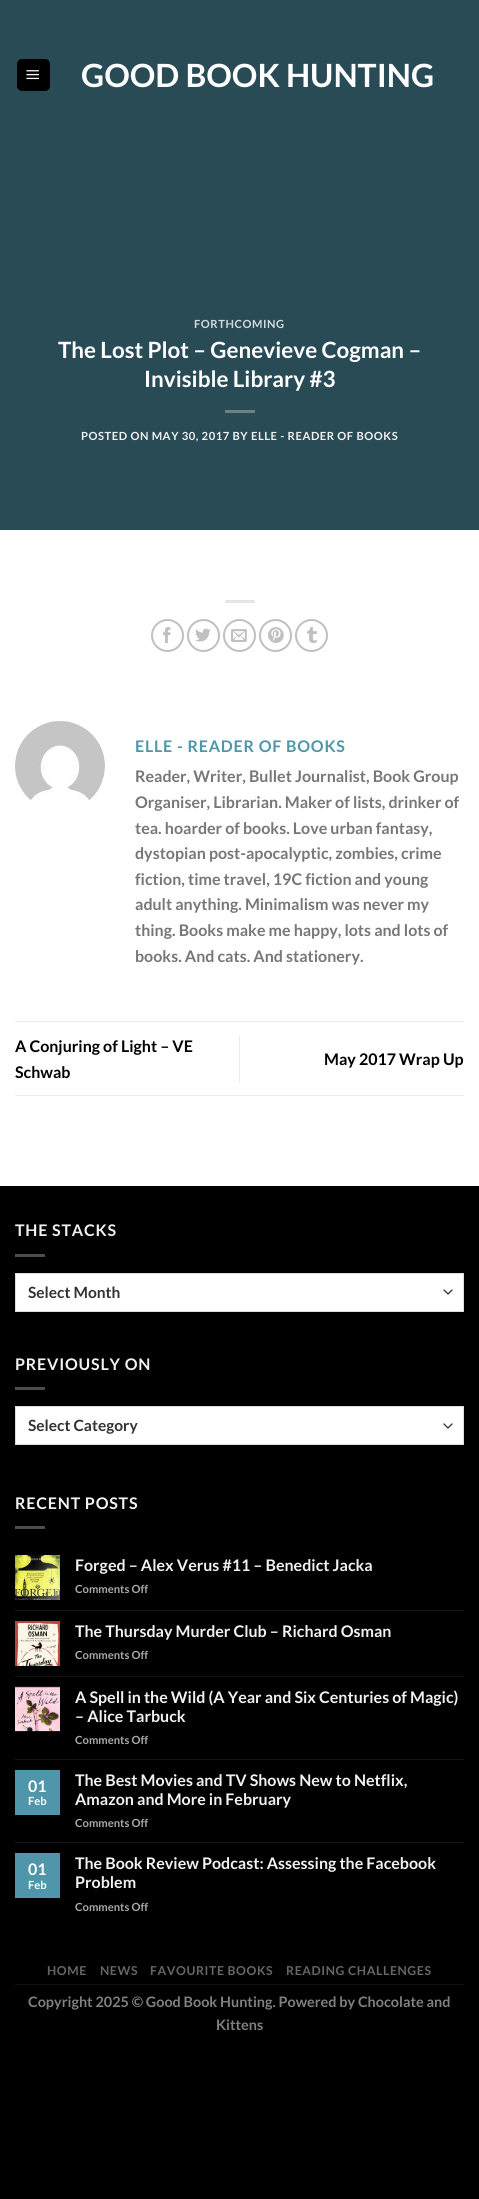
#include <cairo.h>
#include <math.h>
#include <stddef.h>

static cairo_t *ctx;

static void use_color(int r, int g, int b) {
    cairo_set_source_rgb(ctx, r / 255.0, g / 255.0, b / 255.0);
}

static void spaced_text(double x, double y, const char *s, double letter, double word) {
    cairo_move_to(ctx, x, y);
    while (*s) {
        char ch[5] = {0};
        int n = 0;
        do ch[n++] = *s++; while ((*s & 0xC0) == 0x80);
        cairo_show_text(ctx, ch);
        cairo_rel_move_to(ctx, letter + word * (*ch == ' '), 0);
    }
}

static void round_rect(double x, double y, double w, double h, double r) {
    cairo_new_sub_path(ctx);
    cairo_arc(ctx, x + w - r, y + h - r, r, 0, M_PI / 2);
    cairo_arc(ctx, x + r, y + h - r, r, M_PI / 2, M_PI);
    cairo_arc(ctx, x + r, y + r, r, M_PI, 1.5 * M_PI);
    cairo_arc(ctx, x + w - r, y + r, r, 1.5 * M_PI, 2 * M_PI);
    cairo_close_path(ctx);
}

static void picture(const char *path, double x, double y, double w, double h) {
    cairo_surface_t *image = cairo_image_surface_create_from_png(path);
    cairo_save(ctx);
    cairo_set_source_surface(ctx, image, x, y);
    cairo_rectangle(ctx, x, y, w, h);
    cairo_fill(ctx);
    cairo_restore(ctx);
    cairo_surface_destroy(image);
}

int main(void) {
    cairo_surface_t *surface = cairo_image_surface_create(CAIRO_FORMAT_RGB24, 479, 2199);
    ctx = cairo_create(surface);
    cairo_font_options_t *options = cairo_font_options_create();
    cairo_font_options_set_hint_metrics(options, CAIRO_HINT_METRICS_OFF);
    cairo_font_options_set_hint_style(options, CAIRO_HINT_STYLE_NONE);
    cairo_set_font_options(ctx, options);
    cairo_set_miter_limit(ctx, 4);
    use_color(0, 0, 0);
    cairo_paint(ctx);
    use_color(255, 255, 255);
    cairo_rectangle(ctx, 0, 530, 479, 656);
    cairo_fill(ctx);
    use_color(40, 75, 86);
    cairo_rectangle(ctx, 0, 0, 479, 530);
    cairo_fill(ctx);
    use_color(0, 0, 0);
    round_rect(17, 59, 33, 32, 5);
    cairo_fill(ctx);
    picture("img1.png", 26, 70, 13, 10);
    cairo_select_font_face(ctx, "Lato", CAIRO_FONT_SLANT_NORMAL, CAIRO_FONT_WEIGHT_BOLD);
    cairo_set_font_size(ctx, 32);
    use_color(255, 255, 255);
    cairo_move_to(ctx, 81, 87);
    cairo_show_text(ctx, "GOOD BOOK HUNTING");
    cairo_set_font_size(ctx, 11.2);
    use_color(212, 219, 221);
    spaced_text(194, 328, "FORTHCOMING", 0.55, 0);
    cairo_set_font_size(ctx, 22.4);
    use_color(255, 255, 255);
    cairo_move_to(ctx, 58, 358);
    cairo_show_text(ctx, "The Lost Plot – Genevieve Cogman –");
    cairo_move_to(ctx, 144, 387);
    cairo_show_text(ctx, "Invisible Library #3");
    use_color(105, 129, 137);
    cairo_rectangle(ctx, 225, 410, 30, 3);
    cairo_fill(ctx);
    cairo_set_font_size(ctx, 11.2);
    use_color(241, 241, 241);
    spaced_text(81, 440, "POSTED ON MAY 30, 2017 BY ELLE - READER OF BOOKS", 0.55, 0);
    use_color(230, 230, 230);
    cairo_rectangle(ctx, 225, 600, 30, 3);
    cairo_fill(ctx);
    cairo_arc(ctx, 167.5, 635.5, 15.5, 0, 2 * M_PI);
    use_color(192, 192, 192);
    cairo_stroke(ctx);
    picture("img2.png", 163, 627, 8, 16);
    cairo_arc(ctx, 203.5, 635.5, 15.5, 0, 2 * M_PI);
    cairo_stroke(ctx);
    picture("img3.png", 195, 628, 16, 14);
    cairo_arc(ctx, 239.5, 635.5, 15.5, 0, 2 * M_PI);
    cairo_stroke(ctx);
    picture("img4.png", 231, 629, 16, 13);
    cairo_arc(ctx, 275.5, 635.5, 15.5, 0, 2 * M_PI);
    cairo_stroke(ctx);
    picture("img5.png", 268, 627, 16, 16);
    cairo_arc(ctx, 311.5, 635.5, 15.5, 0, 2 * M_PI);
    cairo_stroke(ctx);
    picture("img6.png", 307, 627, 10, 16);
    picture("img7.png", 15, 721, 90, 80);
    cairo_set_font_size(ctx, 16);
    use_color(79, 150, 171);
    spaced_text(135, 752, "ELLE - READER OF BOOKS", 0.8, 0);
    use_color(119, 119, 119);
    cairo_move_to(ctx, 135, 782);
    cairo_show_text(ctx, "Reader, Writer, Bullet Journalist, Book Group");
    cairo_move_to(ctx, 135, 808);
    cairo_show_text(ctx, "Organiser, Librarian. Maker of lists, drinker of");
    cairo_move_to(ctx, 135, 834);
    cairo_show_text(ctx, "tea. hoarder of books. Love urban fantasy,");
    cairo_move_to(ctx, 135, 859);
    cairo_show_text(ctx, "dystopian post-apocalyptic, zombies, crime");
    cairo_move_to(ctx, 135, 885);
    cairo_show_text(ctx, "fiction, time travel, 19C fiction and young");
    cairo_move_to(ctx, 135, 910);
    cairo_show_text(ctx, "adult anything. Minimalism was never my");
    cairo_move_to(ctx, 135, 936);
    cairo_show_text(ctx, "thing. Books make me happy, lots and lots of");
    cairo_move_to(ctx, 135, 962);
    cairo_show_text(ctx, "books. And cats. And stationery.");
    use_color(236, 236, 236);
    cairo_rectangle(ctx, 15, 1021, 449, 1);
    cairo_fill(ctx);
    cairo_rectangle(ctx, 15, 1095, 449, 1);
    cairo_fill(ctx);
    use_color(0, 0, 0);
    cairo_move_to(ctx, 15, 1052);
    cairo_show_text(ctx, "A Conjuring of Light – VE");
    cairo_move_to(ctx, 15, 1078);
    cairo_show_text(ctx, "Schwab");
    use_color(236, 236, 236);
    cairo_rectangle(ctx, 239, 1035, 1, 48);
    cairo_fill(ctx);
    use_color(0, 0, 0);
    cairo_move_to(ctx, 324, 1065);
    cairo_show_text(ctx, "May 2017 Wrap Up");
    use_color(241, 241, 241);
    spaced_text(15, 1236, "THE STACKS", 0.8, 0);
    use_color(77, 77, 77);
    cairo_rectangle(ctx, 15, 1254, 30, 3);
    cairo_fill(ctx);
    use_color(255, 255, 255);
    cairo_rectangle(ctx, 16, 1274, 447, 37);
    cairo_fill(ctx);
    cairo_new_path(ctx);
    cairo_move_to(ctx, 444, 1290);
    cairo_line_to(ctx, 448, 1294);
    cairo_line_to(ctx, 452, 1290);
    use_color(51, 51, 51);
    cairo_set_line_width(ctx, 1.3);
    cairo_set_line_cap(ctx, CAIRO_LINE_CAP_ROUND);
    cairo_set_line_join(ctx, CAIRO_LINE_JOIN_ROUND);
    cairo_stroke(ctx);
    cairo_rectangle(ctx, 15.5, 1273.5, 448, 38);
    use_color(221, 221, 221);
    cairo_set_line_width(ctx, 1);
    cairo_set_line_cap(ctx, CAIRO_LINE_CAP_BUTT);
    cairo_set_line_join(ctx, CAIRO_LINE_JOIN_MITER);
    cairo_stroke(ctx);
    cairo_set_font_size(ctx, 15.5);
    use_color(51, 51, 51);
    cairo_move_to(ctx, 28, 1298);
    cairo_show_text(ctx, "Select Month");
    cairo_set_font_size(ctx, 16);
    use_color(241, 241, 241);
    spaced_text(15, 1370, "PREVIOUSLY ON", 0.8, 0);
    use_color(77, 77, 77);
    cairo_rectangle(ctx, 15, 1387, 30, 3);
    cairo_fill(ctx);
    use_color(255, 255, 255);
    cairo_rectangle(ctx, 16, 1407, 447, 37);
    cairo_fill(ctx);
    cairo_new_path(ctx);
    cairo_move_to(ctx, 444, 1424);
    cairo_line_to(ctx, 448, 1428);
    cairo_line_to(ctx, 452, 1424);
    use_color(51, 51, 51);
    cairo_set_line_width(ctx, 1.3);
    cairo_set_line_cap(ctx, CAIRO_LINE_CAP_ROUND);
    cairo_set_line_join(ctx, CAIRO_LINE_JOIN_ROUND);
    cairo_stroke(ctx);
    cairo_rectangle(ctx, 15.5, 1406.5, 448, 38);
    use_color(221, 221, 221);
    cairo_set_line_width(ctx, 1);
    cairo_set_line_cap(ctx, CAIRO_LINE_CAP_BUTT);
    cairo_set_line_join(ctx, CAIRO_LINE_JOIN_MITER);
    cairo_stroke(ctx);
    cairo_set_font_size(ctx, 15.5);
    use_color(51, 51, 51);
    cairo_move_to(ctx, 28, 1431);
    cairo_show_text(ctx, "Select Category");
    cairo_set_font_size(ctx, 16);
    use_color(241, 241, 241);
    spaced_text(15, 1509, "RECENT POSTS", 0.8, 0);
    use_color(77, 77, 77);
    cairo_rectangle(ctx, 15, 1526, 30, 3);
    cairo_fill(ctx);
    picture("img8.png", 15, 1555, 45, 45);
    use_color(241, 241, 241);
    cairo_move_to(ctx, 75, 1571);
    cairo_show_text(ctx, "Forged – Alex Verus #11 – Benedict Jacka");
    cairo_set_font_size(ctx, 11.2);
    use_color(169, 169, 169);
    cairo_move_to(ctx, 75, 1593);
    cairo_show_text(ctx, "Comments Off");
    use_color(20, 20, 20);
    cairo_rectangle(ctx, 15, 1610, 449, 1);
    cairo_fill(ctx);
    picture("img9.png", 15, 1621, 45, 45);
    cairo_set_font_size(ctx, 16);
    use_color(241, 241, 241);
    cairo_move_to(ctx, 75, 1637);
    cairo_show_text(ctx, "The Thursday Murder Club – Richard Osman");
    cairo_set_font_size(ctx, 11.2);
    use_color(169, 169, 169);
    cairo_move_to(ctx, 75, 1659);
    cairo_show_text(ctx, "Comments Off");
    use_color(20, 20, 20);
    cairo_rectangle(ctx, 15, 1676, 449, 1);
    cairo_fill(ctx);
    picture("img10.png", 15, 1686, 45, 46);
    cairo_set_font_size(ctx, 16);
    use_color(241, 241, 241);
    cairo_move_to(ctx, 75, 1703);
    cairo_show_text(ctx, "A Spell in the Wild (A Year and Six Centuries of Magic)");
    cairo_move_to(ctx, 75, 1722);
    cairo_show_text(ctx, "– Alice Tarbuck");
    cairo_set_font_size(ctx, 11.2);
    use_color(169, 169, 169);
    cairo_move_to(ctx, 75, 1744);
    cairo_show_text(ctx, "Comments Off");
    use_color(20, 20, 20);
    cairo_rectangle(ctx, 15, 1759, 449, 1);
    cairo_fill(ctx);
    use_color(79, 150, 171);
    cairo_rectangle(ctx, 15, 1770, 45, 45);
    cairo_fill(ctx);
    cairo_set_font_size(ctx, 16);
    use_color(255, 255, 255);
    cairo_move_to(ctx, 28, 1792);
    cairo_show_text(ctx, "01");
    cairo_set_font_size(ctx, 11.2);
    cairo_move_to(ctx, 28, 1805);
    cairo_show_text(ctx, "Feb");
    cairo_set_font_size(ctx, 16);
    use_color(241, 241, 241);
    cairo_move_to(ctx, 75, 1786);
    cairo_show_text(ctx, "The Best Movies and TV Shows New to Netflix,");
    cairo_move_to(ctx, 75, 1805);
    cairo_show_text(ctx, "Amazon and More in February");
    cairo_set_font_size(ctx, 11.2);
    use_color(169, 169, 169);
    cairo_move_to(ctx, 75, 1827);
    cairo_show_text(ctx, "Comments Off");
    use_color(20, 20, 20);
    cairo_rectangle(ctx, 15, 1842, 449, 1);
    cairo_fill(ctx);
    use_color(79, 150, 171);
    cairo_rectangle(ctx, 15, 1853, 45, 45);
    cairo_fill(ctx);
    cairo_set_font_size(ctx, 16);
    use_color(255, 255, 255);
    cairo_move_to(ctx, 28, 1875);
    cairo_show_text(ctx, "01");
    cairo_set_font_size(ctx, 11.2);
    cairo_move_to(ctx, 28, 1889);
    cairo_show_text(ctx, "Feb");
    cairo_set_font_size(ctx, 16);
    use_color(241, 241, 241);
    cairo_move_to(ctx, 75, 1869);
    cairo_show_text(ctx, "The Book Review Podcast: Assessing the Facebook");
    cairo_move_to(ctx, 75, 1888);
    cairo_show_text(ctx, "Problem");
    cairo_set_font_size(ctx, 11.2);
    use_color(169, 169, 169);
    cairo_move_to(ctx, 75, 1911);
    cairo_show_text(ctx, "Comments Off");
    use_color(16, 16, 16);
    cairo_rectangle(ctx, 15, 1984, 449, 1);
    cairo_fill(ctx);
    cairo_set_font_size(ctx, 12.25);
    use_color(102, 102, 102);
    spaced_text(47, 1975, "HOME", 0.6, 0);
    spaced_text(100, 1975, "NEWS", 0.6, 0);
    spaced_text(150, 1975, "FAVOURITE BOOKS", 0.6, 0);
    spaced_text(286, 1975, "READING CHALLENGES", 0.6, 0);
    cairo_set_font_size(ctx, 14.4);
    use_color(128, 128, 128);
    cairo_move_to(ctx, 28, 2007);
    cairo_show_text(ctx, "Copyright 2025 © Good Book Hunting. Powered by Chocolate and");
    cairo_move_to(ctx, 216, 2030);
    cairo_show_text(ctx, "Kittens");
    cairo_surface_write_to_png(surface, "result.png");
    cairo_font_options_destroy(options);
    cairo_destroy(ctx);
    cairo_surface_destroy(surface);
    return 0;
}
